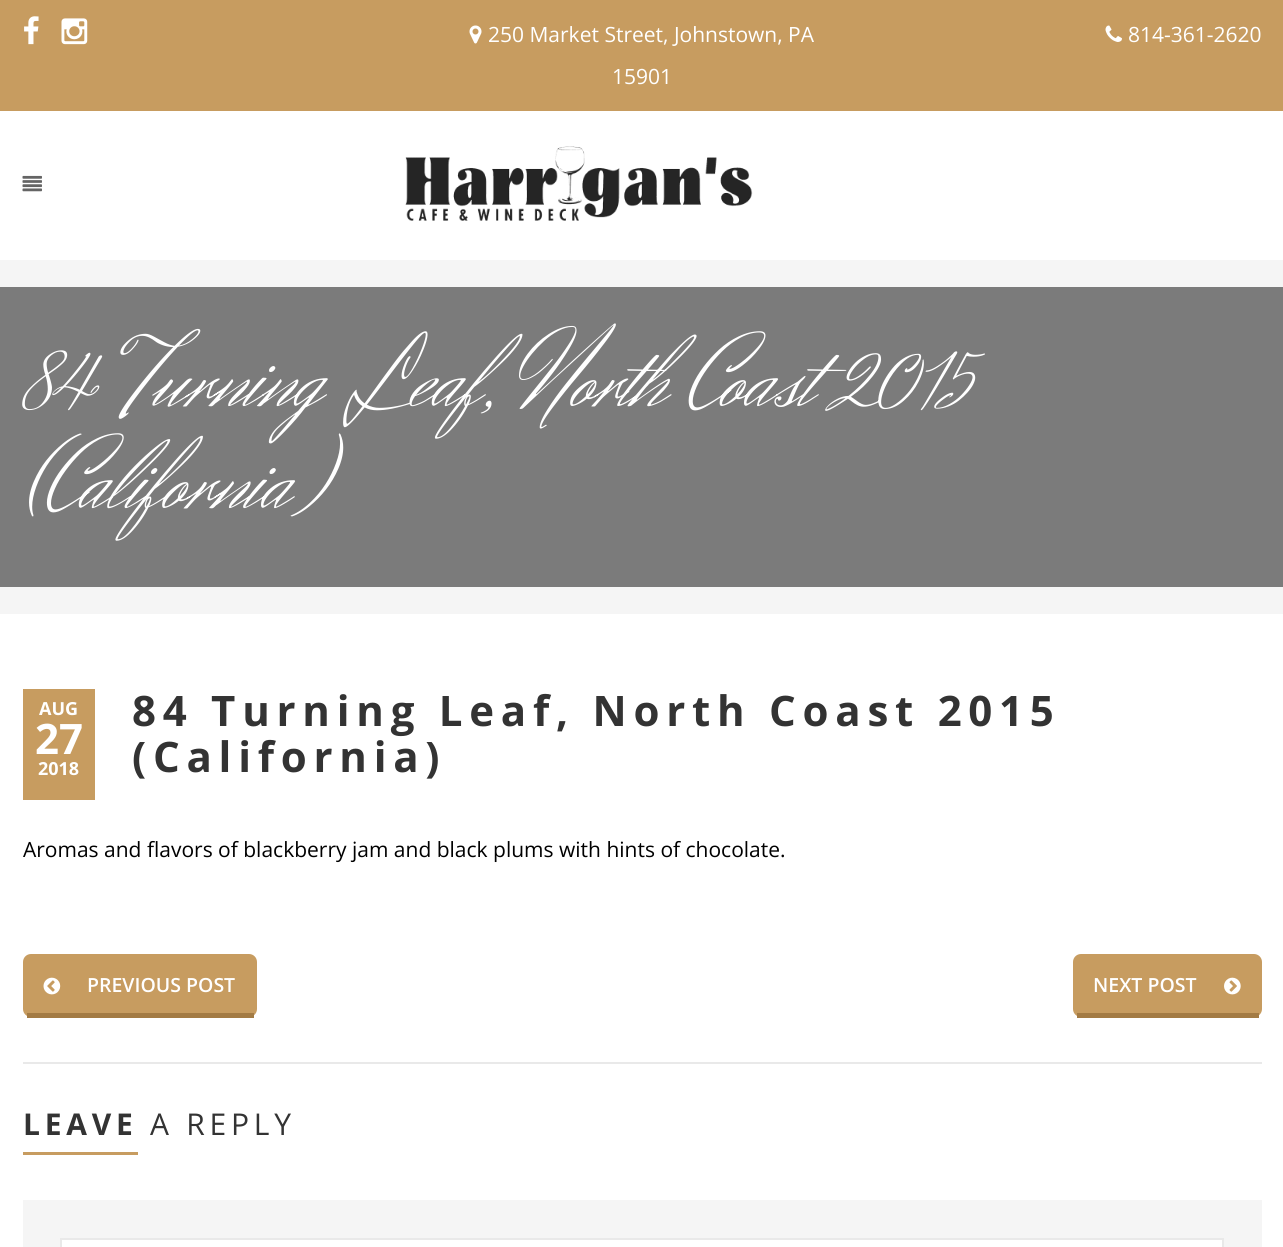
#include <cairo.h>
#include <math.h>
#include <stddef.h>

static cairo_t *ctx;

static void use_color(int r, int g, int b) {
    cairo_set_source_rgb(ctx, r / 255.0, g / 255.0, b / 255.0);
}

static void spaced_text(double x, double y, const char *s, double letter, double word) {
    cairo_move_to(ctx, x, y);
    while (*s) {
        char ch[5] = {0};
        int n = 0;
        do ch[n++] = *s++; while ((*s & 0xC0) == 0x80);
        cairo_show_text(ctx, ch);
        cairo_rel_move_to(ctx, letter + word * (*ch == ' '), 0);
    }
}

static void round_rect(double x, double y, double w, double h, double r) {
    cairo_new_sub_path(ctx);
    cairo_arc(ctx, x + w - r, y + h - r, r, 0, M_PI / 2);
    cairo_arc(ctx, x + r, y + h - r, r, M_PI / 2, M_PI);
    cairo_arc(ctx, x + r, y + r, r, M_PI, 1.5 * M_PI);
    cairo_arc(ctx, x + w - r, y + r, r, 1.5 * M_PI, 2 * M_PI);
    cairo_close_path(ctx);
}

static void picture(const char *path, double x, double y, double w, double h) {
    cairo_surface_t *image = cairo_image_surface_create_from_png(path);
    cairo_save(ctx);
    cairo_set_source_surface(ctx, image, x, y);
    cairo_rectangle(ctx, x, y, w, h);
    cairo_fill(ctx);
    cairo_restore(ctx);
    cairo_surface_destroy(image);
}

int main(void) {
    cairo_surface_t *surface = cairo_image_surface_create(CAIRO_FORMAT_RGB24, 1283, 1247);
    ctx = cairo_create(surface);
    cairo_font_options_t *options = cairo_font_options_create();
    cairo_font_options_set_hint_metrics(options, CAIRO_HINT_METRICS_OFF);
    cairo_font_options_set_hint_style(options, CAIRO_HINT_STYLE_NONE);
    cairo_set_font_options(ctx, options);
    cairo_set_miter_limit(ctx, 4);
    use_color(255, 255, 255);
    cairo_paint(ctx);
    use_color(199, 156, 96);
    cairo_rectangle(ctx, 0, 0, 1283, 111);
    cairo_fill(ctx);
    picture("img1.png", 24, 16, 15, 29);
    picture("img2.png", 61, 18, 27, 27);
    picture("img3.png", 469, 25, 13, 19);
    cairo_select_font_face(ctx, "Open Sans", CAIRO_FONT_SLANT_NORMAL, CAIRO_FONT_WEIGHT_NORMAL);
    cairo_set_font_size(ctx, 21);
    use_color(255, 255, 255);
    cairo_move_to(ctx, 488, 42);
    cairo_show_text(ctx, "250 Market Street, Johnstown, PA");
    cairo_move_to(ctx, 612, 84);
    cairo_show_text(ctx, "15901");
    picture("img4.png", 1105, 25, 17, 17);
    cairo_move_to(ctx, 1128, 42);
    cairo_show_text(ctx, "814-361-2620");
    picture("img5.png", 22, 175, 20, 17);
    picture("img6.png", 405, 146, 348, 75);
    use_color(245, 245, 245);
    cairo_rectangle(ctx, 0, 260, 1283, 354);
    cairo_fill(ctx);
    use_color(123, 123, 123);
    cairo_rectangle(ctx, 0, 287, 1283, 300);
    cairo_fill(ctx);
    cairo_select_font_face(ctx, "Herr Von Muellerhoff", CAIRO_FONT_SLANT_NORMAL, CAIRO_FONT_WEIGHT_NORMAL);
    cairo_set_font_size(ctx, 102);
    use_color(255, 255, 255);
    cairo_move_to(ctx, 23, 406);
    cairo_show_text(ctx, "84 Turning Leaf, North Coast 2015");
    cairo_move_to(ctx, 23, 508);
    cairo_show_text(ctx, "(California)");
    use_color(199, 156, 96);
    cairo_rectangle(ctx, 23, 689, 72, 111);
    cairo_fill(ctx);
    cairo_select_font_face(ctx, "Open Sans", CAIRO_FONT_SLANT_NORMAL, CAIRO_FONT_WEIGHT_BOLD);
    cairo_set_font_size(ctx, 18);
    use_color(255, 255, 255);
    cairo_move_to(ctx, 39, 715);
    cairo_show_text(ctx, "AUG");
    cairo_set_font_size(ctx, 42);
    cairo_move_to(ctx, 35, 754);
    cairo_show_text(ctx, "27");
    cairo_set_font_size(ctx, 18);
    cairo_move_to(ctx, 38, 775);
    cairo_show_text(ctx, "2018");
    cairo_set_font_size(ctx, 42);
    use_color(51, 51, 51);
    spaced_text(132, 726, "84 Turning Leaf, North Coast 2015", 6.75, 0);
    spaced_text(132, 772, "(California)", 6.75, 0);
    cairo_select_font_face(ctx, "Open Sans", CAIRO_FONT_SLANT_NORMAL, CAIRO_FONT_WEIGHT_NORMAL);
    cairo_set_font_size(ctx, 21);
    use_color(0, 0, 0);
    cairo_move_to(ctx, 23, 857);
    cairo_show_text(ctx, "Aromas and flavors of blackberry jam and black plums with hints of chocolate.");
    use_color(199, 156, 96);
    round_rect(23, 954, 234, 63, 8);
    cairo_fill(ctx);
    use_color(163, 123, 68);
    cairo_rectangle(ctx, 27, 1013, 227, 5);
    cairo_fill(ctx);
    picture("img7.png", 43, 977, 18, 18);
    cairo_select_font_face(ctx, "Open Sans SemiBold", CAIRO_FONT_SLANT_NORMAL, CAIRO_FONT_WEIGHT_NORMAL);
    cairo_set_font_size(ctx, 19.5);
    use_color(255, 255, 255);
    cairo_move_to(ctx, 87, 992);
    cairo_show_text(ctx, "PREVIOUS POST");
    use_color(199, 156, 96);
    round_rect(1073, 954, 189, 63, 8);
    cairo_fill(ctx);
    use_color(163, 123, 68);
    cairo_rectangle(ctx, 1077, 1013, 182, 5);
    cairo_fill(ctx);
    use_color(255, 255, 255);
    cairo_move_to(ctx, 1093, 992);
    cairo_show_text(ctx, "NEXT POST");
    picture("img8.png", 1224, 977, 17, 18);
    use_color(233, 233, 233);
    cairo_rectangle(ctx, 23, 1062, 1239, 2);
    cairo_fill(ctx);
    use_color(199, 156, 96);
    cairo_rectangle(ctx, 23, 1152, 115, 3);
    cairo_fill(ctx);
    cairo_select_font_face(ctx, "Open Sans", CAIRO_FONT_SLANT_NORMAL, CAIRO_FONT_WEIGHT_BOLD);
    cairo_set_font_size(ctx, 30);
    use_color(51, 51, 51);
    spaced_text(23, 1135, "LEAVE", 4.75, 0);
    cairo_select_font_face(ctx, "Open Sans", CAIRO_FONT_SLANT_NORMAL, CAIRO_FONT_WEIGHT_NORMAL);
    spaced_text(150, 1135, "A REPLY", 4.75, 0);
    use_color(245, 245, 245);
    cairo_rectangle(ctx, 23, 1200, 1239, 47);
    cairo_fill(ctx);
    use_color(255, 255, 255);
    cairo_rectangle(ctx, 61, 1239, 1162, 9);
    cairo_fill_preserve(ctx);
    use_color(233, 233, 233);
    cairo_stroke(ctx);
    cairo_surface_write_to_png(surface, "result.png");
    cairo_font_options_destroy(options);
    cairo_destroy(ctx);
    cairo_surface_destroy(surface);
    return 0;
}
